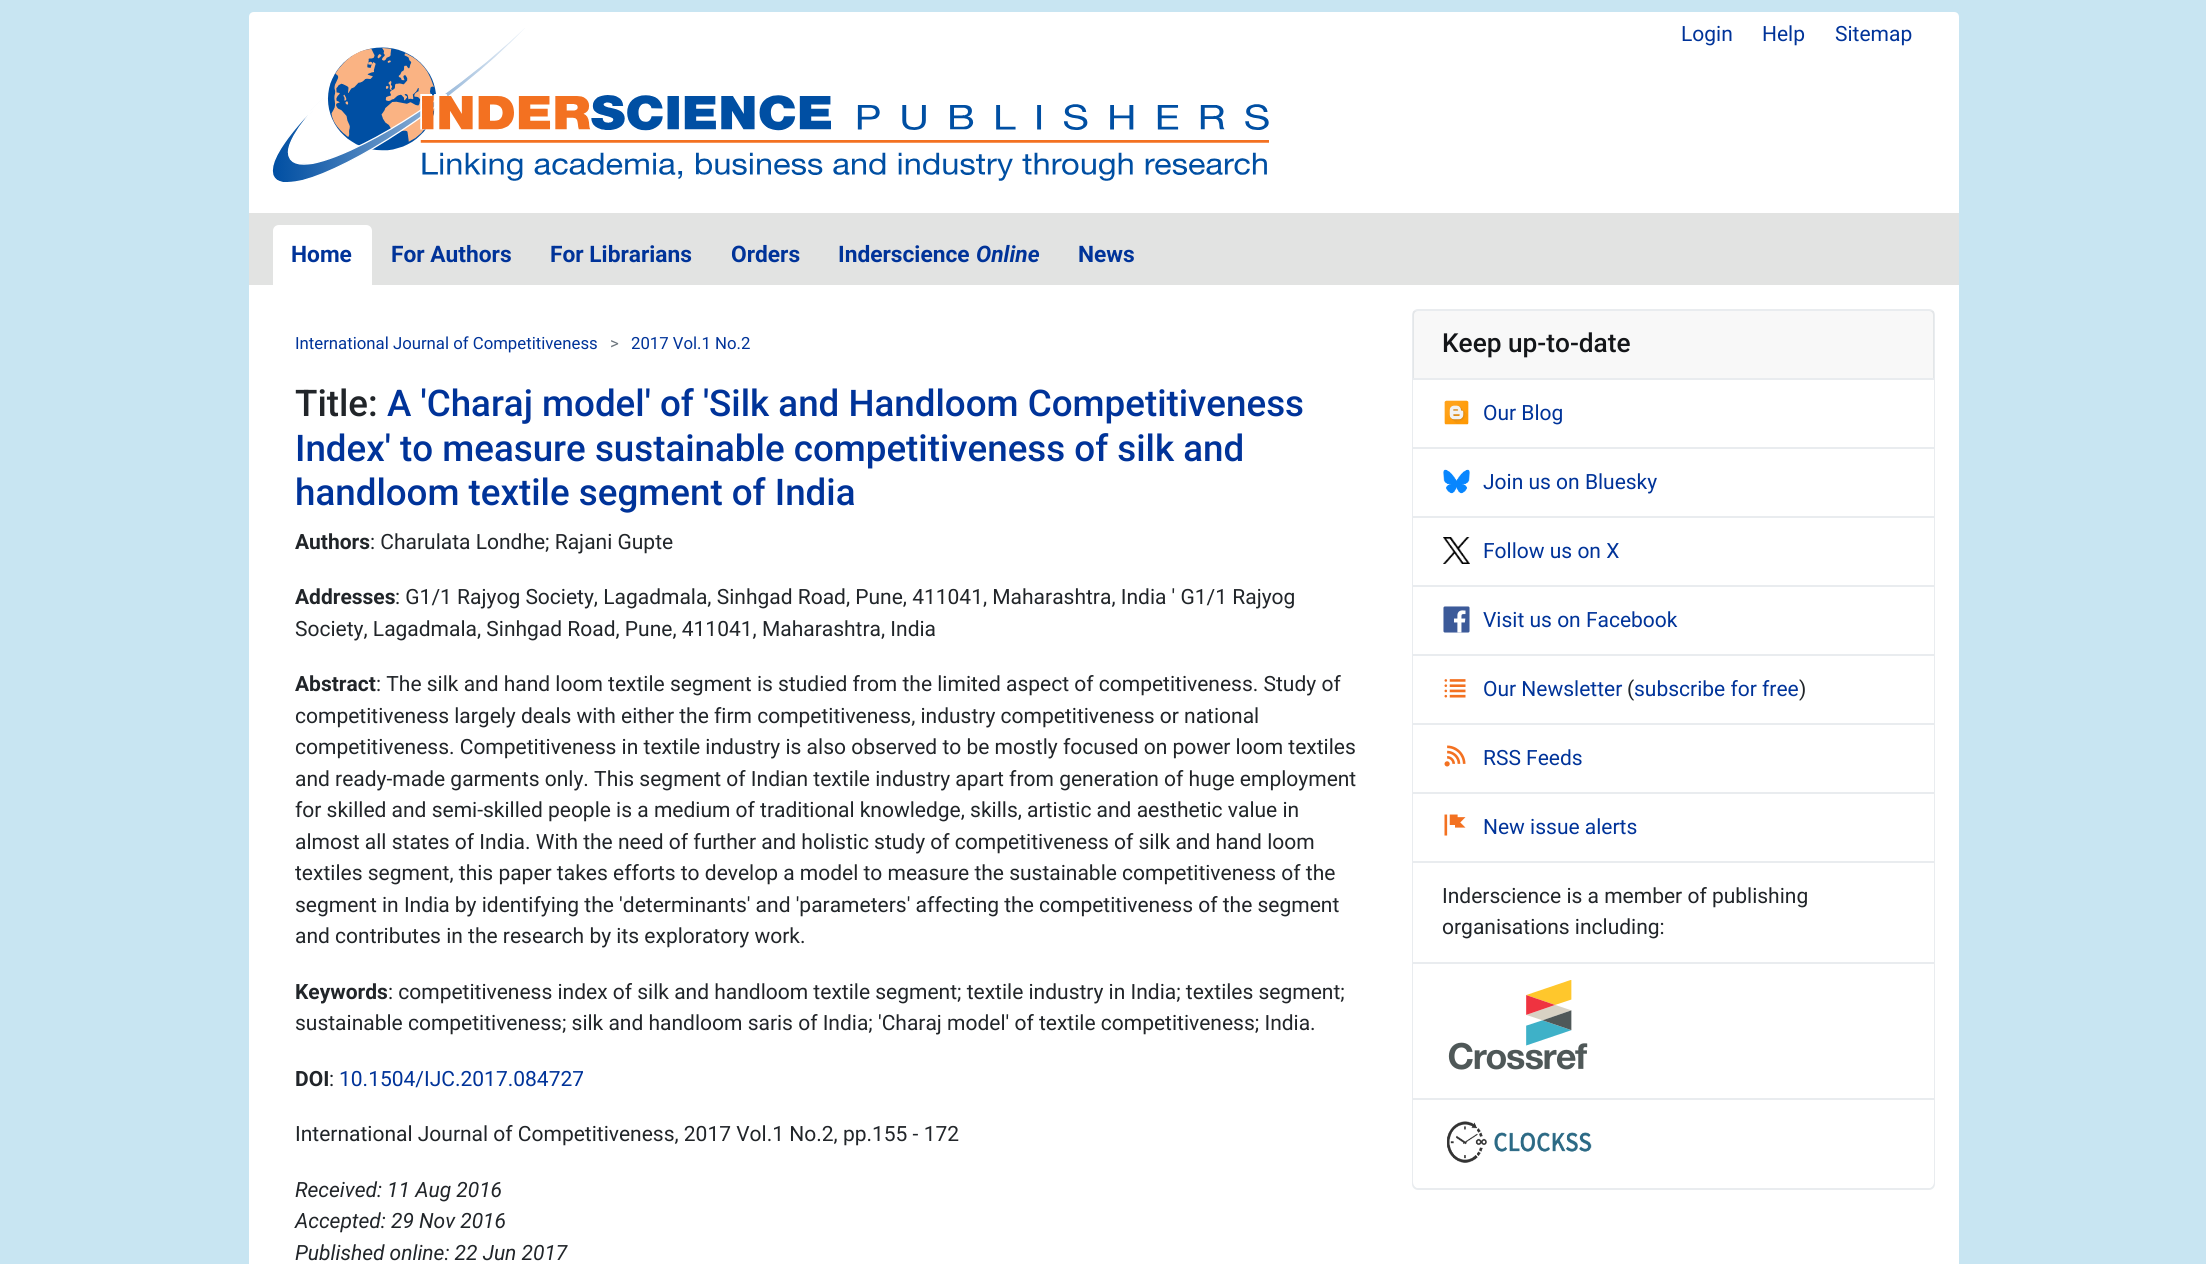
#include <cairo.h>
#include <math.h>
#include <stddef.h>

static cairo_t *ctx;

static void use_color(int r, int g, int b) {
    cairo_set_source_rgb(ctx, r / 255.0, g / 255.0, b / 255.0);
}

static void round_rect(double x, double y, double w, double h, double r) {
    cairo_new_sub_path(ctx);
    cairo_arc(ctx, x + w - r, y + h - r, r, 0, M_PI / 2);
    cairo_arc(ctx, x + r, y + h - r, r, M_PI / 2, M_PI);
    cairo_arc(ctx, x + r, y + r, r, M_PI, 1.5 * M_PI);
    cairo_arc(ctx, x + w - r, y + r, r, 1.5 * M_PI, 2 * M_PI);
    cairo_close_path(ctx);
}

static void picture(const char *path, double x, double y, double w, double h) {
    cairo_surface_t *image = cairo_image_surface_create_from_png(path);
    cairo_save(ctx);
    cairo_set_source_surface(ctx, image, x, y);
    cairo_rectangle(ctx, x, y, w, h);
    cairo_fill(ctx);
    cairo_restore(ctx);
    cairo_surface_destroy(image);
}

int main(void) {
    cairo_surface_t *surface = cairo_image_surface_create(CAIRO_FORMAT_RGB24, 2206, 1264);
    ctx = cairo_create(surface);
    cairo_font_options_t *options = cairo_font_options_create();
    cairo_font_options_set_hint_metrics(options, CAIRO_HINT_METRICS_OFF);
    cairo_font_options_set_hint_style(options, CAIRO_HINT_STYLE_NONE);
    cairo_set_font_options(ctx, options);
    cairo_set_miter_limit(ctx, 4);
    use_color(200, 229, 242);
    cairo_paint(ctx);
    use_color(255, 255, 255);
    cairo_new_path(ctx);
    cairo_move_to(ctx, 254, 12);
    cairo_line_to(ctx, 1954, 12);
    cairo_curve_to(ctx, 1957, 12, 1959, 14, 1959, 17);
    cairo_line_to(ctx, 1959, 285);
    cairo_line_to(ctx, 249, 285);
    cairo_line_to(ctx, 249, 17);
    cairo_curve_to(ctx, 249, 14, 251, 12, 254, 12);
    cairo_close_path(ctx);
    cairo_fill(ctx);
    picture("img1.png", 272, 28, 997, 154);
    cairo_select_font_face(ctx, "Roboto", CAIRO_FONT_SLANT_NORMAL, CAIRO_FONT_WEIGHT_NORMAL);
    cairo_set_font_size(ctx, 21);
    use_color(0, 51, 153);
    cairo_move_to(ctx, 1681, 41);
    cairo_show_text(ctx, "Login");
    cairo_move_to(ctx, 1762, 41);
    cairo_show_text(ctx, "Help");
    cairo_move_to(ctx, 1835, 41);
    cairo_show_text(ctx, "Sitemap");
    use_color(226, 227, 226);
    cairo_rectangle(ctx, 249, 213, 1710, 72);
    cairo_fill(ctx);
    use_color(255, 255, 255);
    cairo_rectangle(ctx, 249, 285, 1710, 979);
    cairo_fill(ctx);
    cairo_new_path(ctx);
    cairo_move_to(ctx, 279, 225);
    cairo_line_to(ctx, 366, 225);
    cairo_curve_to(ctx, 369.5, 225, 372, 227.5, 372, 231);
    cairo_line_to(ctx, 372, 287);
    cairo_line_to(ctx, 273, 287);
    cairo_line_to(ctx, 273, 231);
    cairo_curve_to(ctx, 273, 227.5, 275.5, 225, 279, 225);
    cairo_close_path(ctx);
    cairo_fill(ctx);
    cairo_select_font_face(ctx, "Roboto", CAIRO_FONT_SLANT_NORMAL, CAIRO_FONT_WEIGHT_BOLD);
    cairo_set_font_size(ctx, 22.75);
    use_color(0, 51, 153);
    cairo_move_to(ctx, 291, 262);
    cairo_show_text(ctx, "Home");
    cairo_move_to(ctx, 391, 262);
    cairo_show_text(ctx, "For Authors");
    cairo_move_to(ctx, 550, 262);
    cairo_show_text(ctx, "For Librarians");
    cairo_move_to(ctx, 731, 262);
    cairo_show_text(ctx, "Orders");
    cairo_move_to(ctx, 838, 262);
    cairo_show_text(ctx, "Inderscience");
    cairo_select_font_face(ctx, "Roboto", CAIRO_FONT_SLANT_ITALIC, CAIRO_FONT_WEIGHT_BOLD);
    cairo_move_to(ctx, 976, 262);
    cairo_show_text(ctx, "Online");
    cairo_select_font_face(ctx, "Roboto", CAIRO_FONT_SLANT_NORMAL, CAIRO_FONT_WEIGHT_BOLD);
    cairo_move_to(ctx, 1078, 262);
    cairo_show_text(ctx, "News");
    cairo_select_font_face(ctx, "Roboto", CAIRO_FONT_SLANT_NORMAL, CAIRO_FONT_WEIGHT_NORMAL);
    cairo_set_font_size(ctx, 16.75);
    cairo_move_to(ctx, 295, 349);
    cairo_show_text(ctx, "International Journal of Competitiveness");
    use_color(108, 117, 125);
    cairo_move_to(ctx, 610, 349);
    cairo_show_text(ctx, ">");
    use_color(0, 51, 153);
    cairo_move_to(ctx, 631, 349);
    cairo_show_text(ctx, "2017 Vol.1 No.2");
    cairo_select_font_face(ctx, "Roboto Medium", CAIRO_FONT_SLANT_NORMAL, CAIRO_FONT_WEIGHT_NORMAL);
    cairo_set_font_size(ctx, 36.75);
    use_color(33, 37, 41);
    cairo_move_to(ctx, 295, 416);
    cairo_show_text(ctx, "Title:");
    use_color(0, 51, 153);
    cairo_move_to(ctx, 387, 416);
    cairo_show_text(ctx, "A 'Charaj model' of 'Silk and Handloom Competitiveness");
    cairo_move_to(ctx, 295, 461);
    cairo_show_text(ctx, "Index' to measure sustainable competitiveness of silk and");
    cairo_move_to(ctx, 295, 505);
    cairo_show_text(ctx, "handloom textile segment of India");
    cairo_select_font_face(ctx, "Roboto", CAIRO_FONT_SLANT_NORMAL, CAIRO_FONT_WEIGHT_BOLD);
    cairo_set_font_size(ctx, 21);
    use_color(33, 37, 41);
    cairo_move_to(ctx, 295, 549);
    cairo_show_text(ctx, "Authors");
    cairo_select_font_face(ctx, "Roboto", CAIRO_FONT_SLANT_NORMAL, CAIRO_FONT_WEIGHT_NORMAL);
    cairo_move_to(ctx, 370, 549);
    cairo_show_text(ctx, ": Charulata Londhe; Rajani Gupte");
    cairo_select_font_face(ctx, "Roboto", CAIRO_FONT_SLANT_NORMAL, CAIRO_FONT_WEIGHT_BOLD);
    cairo_move_to(ctx, 295, 604);
    cairo_show_text(ctx, "Addresses");
    cairo_select_font_face(ctx, "Roboto", CAIRO_FONT_SLANT_NORMAL, CAIRO_FONT_WEIGHT_NORMAL);
    cairo_move_to(ctx, 395, 604);
    cairo_show_text(ctx, ": G1/1 Rajyog Society, Lagadmala, Sinhgad Road, Pune, 411041, Maharashtra, India ' G1/1 Rajyog");
    cairo_move_to(ctx, 295, 636);
    cairo_show_text(ctx, "Society, Lagadmala, Sinhgad Road, Pune, 411041, Maharashtra, India");
    cairo_select_font_face(ctx, "Roboto", CAIRO_FONT_SLANT_NORMAL, CAIRO_FONT_WEIGHT_BOLD);
    cairo_move_to(ctx, 295, 691);
    cairo_show_text(ctx, "Abstract");
    cairo_select_font_face(ctx, "Roboto", CAIRO_FONT_SLANT_NORMAL, CAIRO_FONT_WEIGHT_NORMAL);
    cairo_move_to(ctx, 376, 691);
    cairo_show_text(ctx, ": The silk and hand loom textile segment is studied from the limited aspect of competitiveness. Study of");
    cairo_move_to(ctx, 295, 723);
    cairo_show_text(ctx, "competitiveness largely deals with either the firm competitiveness, industry competitiveness or national");
    cairo_move_to(ctx, 295, 754);
    cairo_show_text(ctx, "competitiveness. Competitiveness in textile industry is also observed to be mostly focused on power loom textiles");
    cairo_move_to(ctx, 295, 786);
    cairo_show_text(ctx, "and ready-made garments only. This segment of Indian textile industry apart from generation of huge employment");
    cairo_move_to(ctx, 295, 817);
    cairo_show_text(ctx, "for skilled and semi-skilled people is a medium of traditional knowledge, skills, artistic and aesthetic value in");
    cairo_move_to(ctx, 295, 849);
    cairo_show_text(ctx, "almost all states of India. With the need of further and holistic study of competitiveness of silk and hand loom");
    cairo_move_to(ctx, 295, 880);
    cairo_show_text(ctx, "textiles segment, this paper takes efforts to develop a model to measure the sustainable competitiveness of the");
    cairo_move_to(ctx, 295, 912);
    cairo_show_text(ctx, "segment in India by identifying the 'determinants' and 'parameters' affecting the competitiveness of the segment");
    cairo_move_to(ctx, 295, 943);
    cairo_show_text(ctx, "and contributes in the research by its exploratory work.");
    cairo_select_font_face(ctx, "Roboto", CAIRO_FONT_SLANT_NORMAL, CAIRO_FONT_WEIGHT_BOLD);
    cairo_move_to(ctx, 295, 999);
    cairo_show_text(ctx, "Keywords");
    cairo_select_font_face(ctx, "Roboto", CAIRO_FONT_SLANT_NORMAL, CAIRO_FONT_WEIGHT_NORMAL);
    cairo_move_to(ctx, 388, 999);
    cairo_show_text(ctx, ": competitiveness index of silk and handloom textile segment; textile industry in India; textiles segment;");
    cairo_move_to(ctx, 295, 1030);
    cairo_show_text(ctx, "sustainable competitiveness; silk and handloom saris of India; 'Charaj model' of textile competitiveness; India.");
    cairo_select_font_face(ctx, "Roboto", CAIRO_FONT_SLANT_NORMAL, CAIRO_FONT_WEIGHT_BOLD);
    cairo_move_to(ctx, 295, 1086);
    cairo_show_text(ctx, "DOI");
    cairo_select_font_face(ctx, "Roboto", CAIRO_FONT_SLANT_NORMAL, CAIRO_FONT_WEIGHT_NORMAL);
    cairo_move_to(ctx, 329, 1086);
    cairo_show_text(ctx, ":");
    use_color(0, 51, 153);
    cairo_move_to(ctx, 339, 1086);
    cairo_show_text(ctx, "10.1504/IJC.2017.084727");
    use_color(33, 37, 41);
    cairo_move_to(ctx, 295, 1141);
    cairo_show_text(ctx, "International Journal of Competitiveness, 2017 Vol.1 No.2, pp.155 - 172");
    cairo_select_font_face(ctx, "Roboto", CAIRO_FONT_SLANT_ITALIC, CAIRO_FONT_WEIGHT_NORMAL);
    cairo_move_to(ctx, 295, 1197);
    cairo_show_text(ctx, "Received: 11 Aug 2016");
    cairo_move_to(ctx, 295, 1228);
    cairo_show_text(ctx, "Accepted: 29 Nov 2016");
    cairo_move_to(ctx, 295, 1260);
    cairo_show_text(ctx, "Published online: 22 Jun 2017");
    round_rect(1413, 310, 521, 879, 5);
    use_color(233, 236, 239);
    cairo_stroke(ctx);
    cairo_set_source_rgba(ctx, 0, 0, 0, 0.03);
    cairo_rectangle(ctx, 1413, 311, 521, 67);
    cairo_fill(ctx);
    use_color(233, 236, 239);
    cairo_rectangle(ctx, 1413, 378, 521, 2);
    cairo_fill(ctx);
    cairo_select_font_face(ctx, "Roboto Medium", CAIRO_FONT_SLANT_NORMAL, CAIRO_FONT_WEIGHT_NORMAL);
    cairo_set_font_size(ctx, 26.25);
    use_color(20, 22, 25);
    cairo_move_to(ctx, 1442, 352);
    cairo_show_text(ctx, "Keep up-to-date");
    use_color(255, 255, 255);
    cairo_rectangle(ctx, 1413, 380, 521, 67);
    cairo_fill(ctx);
    picture("img2.png", 1444, 400, 25, 25);
    cairo_select_font_face(ctx, "Roboto", CAIRO_FONT_SLANT_NORMAL, CAIRO_FONT_WEIGHT_NORMAL);
    cairo_set_font_size(ctx, 21);
    use_color(0, 51, 153);
    cairo_move_to(ctx, 1483, 420);
    cairo_show_text(ctx, "Our Blog");
    use_color(255, 255, 255);
    cairo_rectangle(ctx, 1413, 449, 521, 67);
    cairo_fill(ctx);
    use_color(233, 236, 239);
    cairo_rectangle(ctx, 1413, 447, 521, 2);
    cairo_fill(ctx);
    picture("img3.png", 1443, 469, 27, 25);
    use_color(0, 51, 153);
    cairo_move_to(ctx, 1483, 489);
    cairo_show_text(ctx, "Join us on Bluesky");
    use_color(255, 255, 255);
    cairo_rectangle(ctx, 1413, 518, 521, 67);
    cairo_fill(ctx);
    use_color(233, 236, 239);
    cairo_rectangle(ctx, 1413, 516, 521, 2);
    cairo_fill(ctx);
    picture("img4.png", 1443, 537, 27, 27);
    use_color(0, 51, 153);
    cairo_move_to(ctx, 1483, 558);
    cairo_show_text(ctx, "Follow us on X");
    use_color(255, 255, 255);
    cairo_rectangle(ctx, 1413, 587, 521, 67);
    cairo_fill(ctx);
    use_color(233, 236, 239);
    cairo_rectangle(ctx, 1413, 585, 521, 2);
    cairo_fill(ctx);
    picture("img5.png", 1443, 606, 27, 27);
    use_color(0, 51, 153);
    cairo_move_to(ctx, 1483, 627);
    cairo_show_text(ctx, "Visit us on Facebook");
    use_color(255, 255, 255);
    cairo_rectangle(ctx, 1413, 656, 521, 67);
    cairo_fill(ctx);
    use_color(233, 236, 239);
    cairo_rectangle(ctx, 1413, 654, 521, 2);
    cairo_fill(ctx);
    picture("img6.png", 1444, 679, 22, 19);
    use_color(0, 51, 153);
    cairo_move_to(ctx, 1483, 696);
    cairo_show_text(ctx, "Our Newsletter");
    use_color(33, 37, 41);
    cairo_move_to(ctx, 1627, 696);
    cairo_show_text(ctx, "(");
    use_color(0, 51, 153);
    cairo_move_to(ctx, 1634, 696);
    cairo_show_text(ctx, "subscribe for free");
    use_color(33, 37, 41);
    cairo_move_to(ctx, 1799, 696);
    cairo_show_text(ctx, ")");
    use_color(255, 255, 255);
    cairo_rectangle(ctx, 1413, 725, 521, 67);
    cairo_fill(ctx);
    use_color(233, 236, 239);
    cairo_rectangle(ctx, 1413, 723, 521, 2);
    cairo_fill(ctx);
    picture("img7.png", 1444, 745, 22, 22);
    use_color(0, 51, 153);
    cairo_move_to(ctx, 1483, 765);
    cairo_show_text(ctx, "RSS Feeds");
    use_color(255, 255, 255);
    cairo_rectangle(ctx, 1413, 794, 521, 67);
    cairo_fill(ctx);
    use_color(233, 236, 239);
    cairo_rectangle(ctx, 1413, 792, 521, 2);
    cairo_fill(ctx);
    picture("img8.png", 1444, 814, 22, 22);
    use_color(0, 51, 153);
    cairo_move_to(ctx, 1483, 834);
    cairo_show_text(ctx, "New issue alerts");
    use_color(255, 255, 255);
    cairo_rectangle(ctx, 1413, 863, 521, 99);
    cairo_fill(ctx);
    use_color(233, 236, 239);
    cairo_rectangle(ctx, 1413, 861, 521, 2);
    cairo_fill(ctx);
    use_color(33, 37, 41);
    cairo_move_to(ctx, 1442, 903);
    cairo_show_text(ctx, "Inderscience is a member of publishing");
    cairo_move_to(ctx, 1442, 934);
    cairo_show_text(ctx, "organisations including:");
    use_color(255, 255, 255);
    cairo_rectangle(ctx, 1413, 964, 521, 134);
    cairo_fill(ctx);
    use_color(233, 236, 239);
    cairo_rectangle(ctx, 1413, 962, 521, 2);
    cairo_fill(ctx);
    picture("img9.png", 1448, 980, 140, 90);
    use_color(255, 255, 255);
    cairo_new_path(ctx);
    cairo_move_to(ctx, 1413, 1098);
    cairo_line_to(ctx, 1934, 1098);
    cairo_line_to(ctx, 1934, 1182);
    cairo_curve_to(ctx, 1934, 1185.5, 1931.5, 1188, 1928, 1188);
    cairo_line_to(ctx, 1419, 1188);
    cairo_curve_to(ctx, 1415.5, 1188, 1413, 1185.5, 1413, 1182);
    cairo_close_path(ctx);
    cairo_fill(ctx);
    use_color(233, 236, 239);
    cairo_rectangle(ctx, 1413, 1098, 521, 2);
    cairo_fill(ctx);
    picture("img10.png", 1447, 1121, 145, 42);
    cairo_surface_write_to_png(surface, "result.png");
    cairo_font_options_destroy(options);
    cairo_destroy(ctx);
    cairo_surface_destroy(surface);
    return 0;
}
